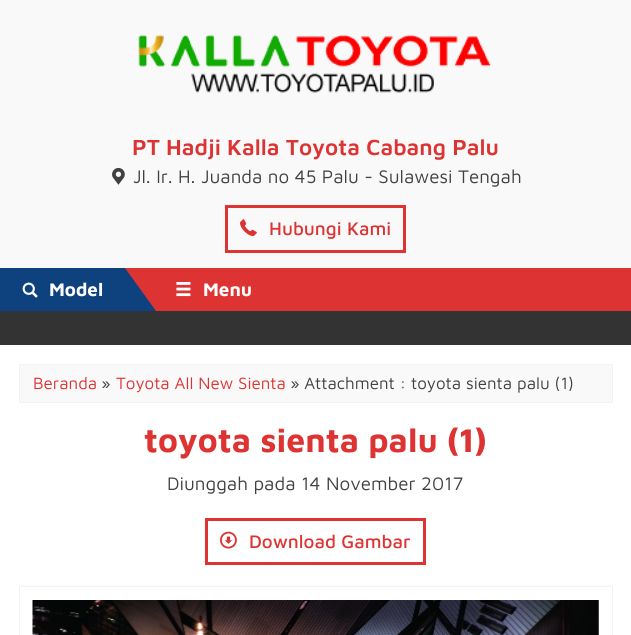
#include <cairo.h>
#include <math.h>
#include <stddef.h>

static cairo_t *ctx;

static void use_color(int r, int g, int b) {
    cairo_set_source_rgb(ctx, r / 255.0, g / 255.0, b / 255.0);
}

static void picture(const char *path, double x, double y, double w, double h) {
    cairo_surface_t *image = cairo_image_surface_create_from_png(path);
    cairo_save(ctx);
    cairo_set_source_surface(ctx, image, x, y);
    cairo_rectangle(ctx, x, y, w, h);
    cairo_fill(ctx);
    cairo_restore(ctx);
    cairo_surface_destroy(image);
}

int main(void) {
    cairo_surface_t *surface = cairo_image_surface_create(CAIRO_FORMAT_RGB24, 631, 635);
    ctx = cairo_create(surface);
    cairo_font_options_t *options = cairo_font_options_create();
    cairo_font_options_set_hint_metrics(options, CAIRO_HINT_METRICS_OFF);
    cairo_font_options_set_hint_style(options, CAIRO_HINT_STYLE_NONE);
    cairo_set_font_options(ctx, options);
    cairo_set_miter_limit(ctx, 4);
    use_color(255, 255, 255);
    cairo_paint(ctx);
    use_color(249, 249, 249);
    cairo_rectangle(ctx, 0, 0, 631, 268);
    cairo_fill(ctx);
    picture("img1.png", 138, 34, 353, 59);
    cairo_select_font_face(ctx, "Maven Pro SemiBold", CAIRO_FONT_SLANT_NORMAL, CAIRO_FONT_WEIGHT_NORMAL);
    cairo_set_font_size(ctx, 22.5);
    use_color(221, 51, 51);
    cairo_move_to(ctx, 132, 155);
    cairo_show_text(ctx, "PT Hadji Kalla Toyota Cabang Palu");
    picture("img2.png", 112, 167, 13, 18);
    cairo_select_font_face(ctx, "Maven Pro", CAIRO_FONT_SLANT_NORMAL, CAIRO_FONT_WEIGHT_NORMAL);
    cairo_set_font_size(ctx, 18.75);
    use_color(65, 65, 65);
    cairo_move_to(ctx, 133, 183);
    cairo_show_text(ctx, "Jl. Ir. H. Juanda no 45 Palu - Sulawesi Tengah");
    cairo_rectangle(ctx, 226.5, 206.5, 178, 45);
    use_color(221, 51, 51);
    cairo_set_line_width(ctx, 3);
    cairo_stroke(ctx);
    picture("img3.png", 240, 219, 17, 17);
    cairo_select_font_face(ctx, "Maven Pro Medium", CAIRO_FONT_SLANT_NORMAL, CAIRO_FONT_WEIGHT_NORMAL);
    cairo_move_to(ctx, 269, 235);
    cairo_show_text(ctx, "Hubungi Kami");
    cairo_rectangle(ctx, 125, 268, 506, 43);
    cairo_fill(ctx);
    use_color(14, 66, 127);
    cairo_rectangle(ctx, 0, 268, 125, 43);
    cairo_fill(ctx);
    picture("img4.png", 22, 282, 16, 16);
    cairo_select_font_face(ctx, "Maven Pro", CAIRO_FONT_SLANT_NORMAL, CAIRO_FONT_WEIGHT_BOLD);
    use_color(255, 255, 255);
    cairo_move_to(ctx, 49, 296);
    cairo_show_text(ctx, "Model");
    use_color(14, 66, 127);
    cairo_new_path(ctx);
    cairo_move_to(ctx, 125, 311);
    cairo_line_to(ctx, 125, 268);
    cairo_line_to(ctx, 156, 311);
    cairo_close_path(ctx);
    cairo_fill(ctx);
    picture("img5.png", 176, 282, 15, 15);
    use_color(255, 255, 255);
    cairo_move_to(ctx, 203, 296);
    cairo_show_text(ctx, "Menu");
    use_color(51, 51, 51);
    cairo_rectangle(ctx, 0, 311, 631, 34);
    cairo_fill(ctx);
    use_color(249, 249, 249);
    cairo_rectangle(ctx, 19.5, 364.5, 593, 38);
    cairo_fill_preserve(ctx);
    use_color(243, 243, 243);
    cairo_set_line_width(ctx, 1);
    cairo_stroke(ctx);
    cairo_select_font_face(ctx, "Maven Pro", CAIRO_FONT_SLANT_NORMAL, CAIRO_FONT_WEIGHT_NORMAL);
    cairo_set_font_size(ctx, 16.9);
    use_color(221, 51, 51);
    cairo_move_to(ctx, 33, 389);
    cairo_show_text(ctx, "Beranda");
    use_color(65, 65, 65);
    cairo_move_to(ctx, 101, 389);
    cairo_show_text(ctx, "»");
    use_color(221, 51, 51);
    cairo_move_to(ctx, 116, 389);
    cairo_show_text(ctx, "Toyota All New Sienta");
    use_color(65, 65, 65);
    cairo_move_to(ctx, 290, 389);
    cairo_show_text(ctx, "» Attachment : toyota sienta palu (1)");
    cairo_select_font_face(ctx, "Maven Pro", CAIRO_FONT_SLANT_NORMAL, CAIRO_FONT_WEIGHT_BOLD);
    cairo_set_font_size(ctx, 33.75);
    use_color(221, 51, 51);
    cairo_move_to(ctx, 144, 452);
    cairo_show_text(ctx, "toyota sienta palu (1)");
    cairo_select_font_face(ctx, "Maven Pro", CAIRO_FONT_SLANT_NORMAL, CAIRO_FONT_WEIGHT_NORMAL);
    cairo_set_font_size(ctx, 18.75);
    use_color(65, 65, 65);
    cairo_move_to(ctx, 167, 490);
    cairo_show_text(ctx, "Diunggah pada 14 November 2017");
    cairo_rectangle(ctx, 206.5, 519.5, 218, 44);
    use_color(221, 51, 51);
    cairo_set_line_width(ctx, 3);
    cairo_stroke(ctx);
    picture("img6.png", 220, 531, 17, 18);
    cairo_select_font_face(ctx, "Maven Pro Medium", CAIRO_FONT_SLANT_NORMAL, CAIRO_FONT_WEIGHT_NORMAL);
    cairo_move_to(ctx, 249, 548);
    cairo_show_text(ctx, "Download Gambar");
    cairo_rectangle(ctx, 19.5, 586.5, 593, 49);
    use_color(243, 243, 243);
    cairo_set_line_width(ctx, 1);
    cairo_stroke(ctx);
    picture("img7.png", 32, 600, 567, 35);
    cairo_surface_write_to_png(surface, "result.png");
    cairo_font_options_destroy(options);
    cairo_destroy(ctx);
    cairo_surface_destroy(surface);
    return 0;
}
